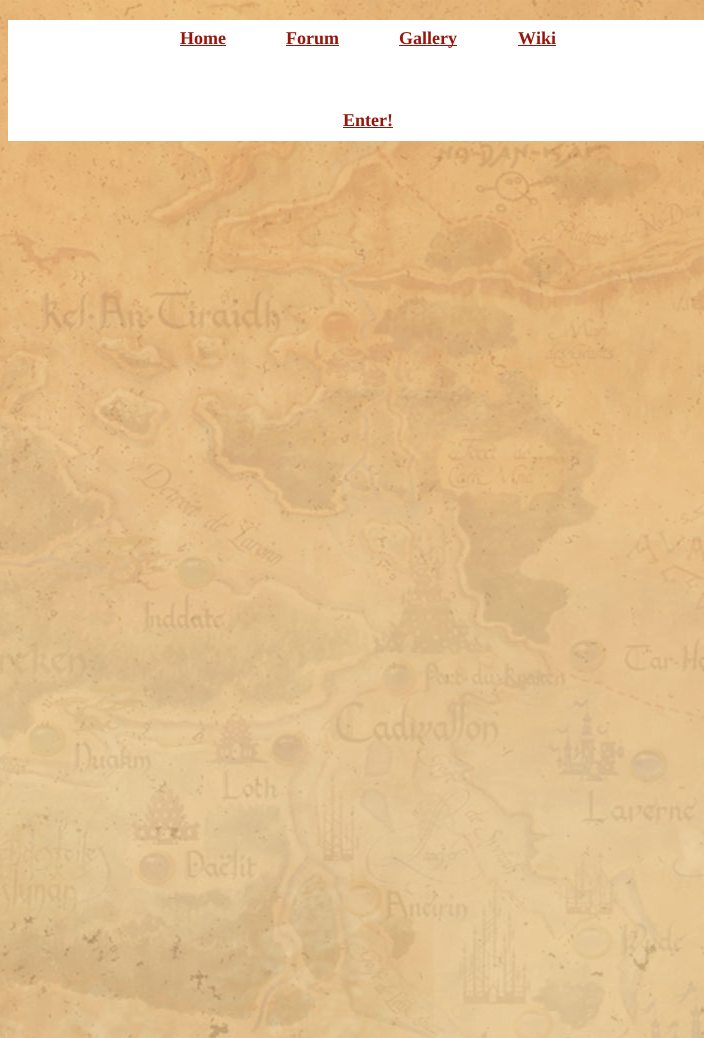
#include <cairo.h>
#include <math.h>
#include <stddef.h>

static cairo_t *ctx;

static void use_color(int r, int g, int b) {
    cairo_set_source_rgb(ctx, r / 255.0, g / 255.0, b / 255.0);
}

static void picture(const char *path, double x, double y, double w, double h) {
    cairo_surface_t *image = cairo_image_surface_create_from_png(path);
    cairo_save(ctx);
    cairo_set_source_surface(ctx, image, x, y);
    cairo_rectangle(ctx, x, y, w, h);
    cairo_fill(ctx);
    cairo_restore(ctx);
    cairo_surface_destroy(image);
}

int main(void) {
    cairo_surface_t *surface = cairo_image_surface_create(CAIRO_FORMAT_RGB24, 704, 1038);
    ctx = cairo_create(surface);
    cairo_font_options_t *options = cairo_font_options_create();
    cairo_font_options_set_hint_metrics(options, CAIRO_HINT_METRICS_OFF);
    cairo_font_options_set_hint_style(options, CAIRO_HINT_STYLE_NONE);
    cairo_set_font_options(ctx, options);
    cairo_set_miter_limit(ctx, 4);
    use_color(255, 255, 255);
    cairo_paint(ctx);
    picture("img1.png", 0, 0, 704, 1038);
    use_color(255, 255, 255);
    cairo_rectangle(ctx, 8, 20, 696, 121);
    cairo_fill(ctx);
    cairo_select_font_face(ctx, "Liberation Serif", CAIRO_FONT_SLANT_NORMAL, CAIRO_FONT_WEIGHT_BOLD);
    cairo_set_font_size(ctx, 18);
    use_color(152, 21, 11);
    cairo_move_to(ctx, 180, 44);
    cairo_show_text(ctx, "Home");
    cairo_rectangle(ctx, 180, 45, 46, 1);
    cairo_fill(ctx);
    cairo_move_to(ctx, 286, 44);
    cairo_show_text(ctx, "Forum");
    cairo_rectangle(ctx, 286, 45, 53, 1);
    cairo_fill(ctx);
    cairo_rectangle(ctx, 399, 45, 58, 1);
    cairo_fill(ctx);
    cairo_move_to(ctx, 399, 44);
    cairo_show_text(ctx, "Gallery");
    cairo_move_to(ctx, 518, 44);
    cairo_show_text(ctx, "Wiki");
    cairo_rectangle(ctx, 518, 45, 38, 1);
    cairo_fill(ctx);
    cairo_move_to(ctx, 343, 126);
    cairo_show_text(ctx, "Enter!");
    cairo_rectangle(ctx, 343, 127, 50, 1);
    cairo_fill(ctx);
    cairo_surface_write_to_png(surface, "result.png");
    cairo_font_options_destroy(options);
    cairo_destroy(ctx);
    cairo_surface_destroy(surface);
    return 0;
}
